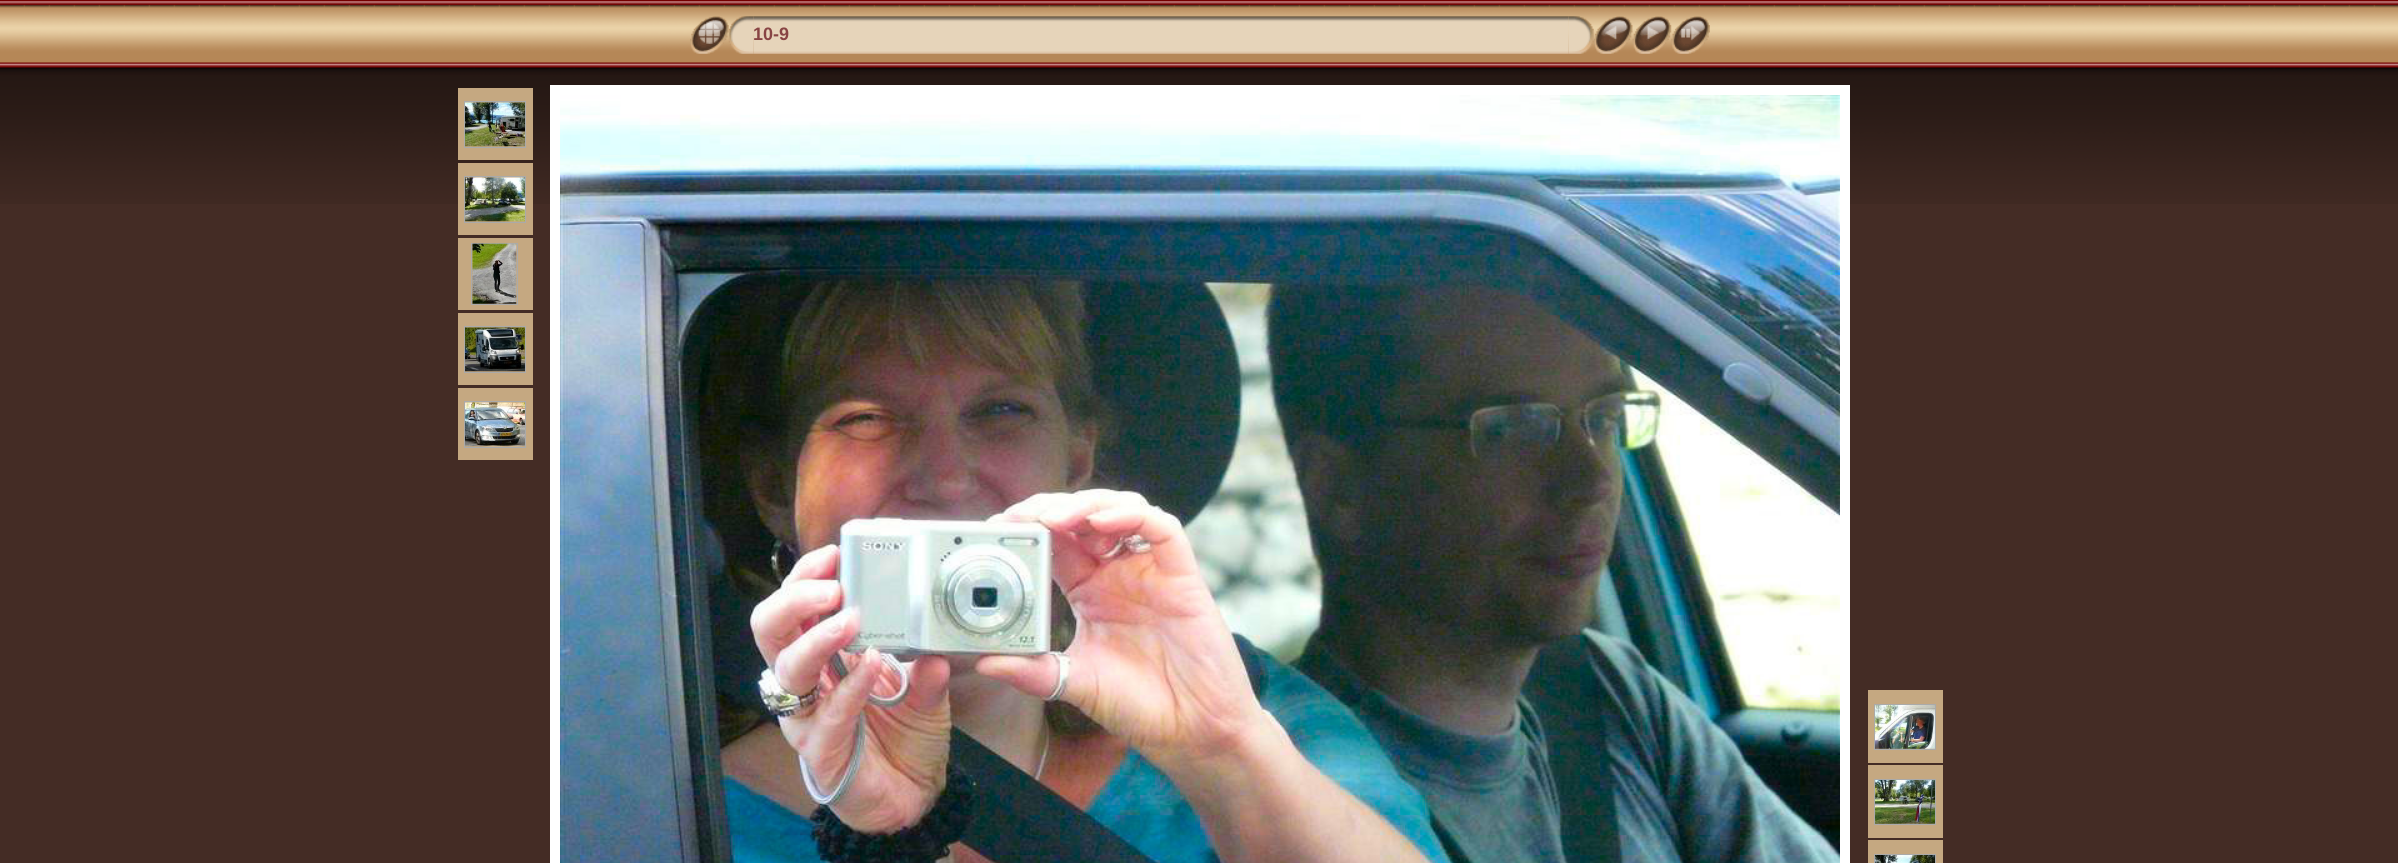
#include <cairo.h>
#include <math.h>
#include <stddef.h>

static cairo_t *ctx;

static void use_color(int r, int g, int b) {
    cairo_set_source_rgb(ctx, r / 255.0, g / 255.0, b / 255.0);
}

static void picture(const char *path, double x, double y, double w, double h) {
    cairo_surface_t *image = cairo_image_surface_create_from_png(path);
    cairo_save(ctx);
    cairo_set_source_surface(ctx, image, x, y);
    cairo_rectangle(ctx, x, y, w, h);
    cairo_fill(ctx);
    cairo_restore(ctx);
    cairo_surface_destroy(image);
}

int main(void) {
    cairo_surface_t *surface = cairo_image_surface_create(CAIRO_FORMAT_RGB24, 2398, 863);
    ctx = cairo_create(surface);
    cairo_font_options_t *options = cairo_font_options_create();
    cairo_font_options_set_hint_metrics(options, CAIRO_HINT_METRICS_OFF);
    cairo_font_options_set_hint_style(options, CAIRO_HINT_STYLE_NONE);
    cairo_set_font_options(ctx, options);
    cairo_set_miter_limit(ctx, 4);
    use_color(68, 44, 37);
    cairo_paint(ctx);
    picture("img1.png", 0, 0, 2398, 204);
    picture("img2.png", 690, 16, 39, 38);
    picture("img4.png", 753, 16, 816, 38);
    picture("img3.png", 728, 16, 26, 38);
    cairo_select_font_face(ctx, "Liberation Sans", CAIRO_FONT_SLANT_NORMAL, CAIRO_FONT_WEIGHT_BOLD);
    cairo_set_font_size(ctx, 18);
    use_color(136, 68, 68);
    cairo_move_to(ctx, 753, 40);
    cairo_show_text(ctx, "10-9");
    picture("img5.png", 1568, 16, 26, 38);
    picture("img6.png", 1594, 16, 39, 38);
    picture("img7.png", 1632, 16, 40, 38);
    picture("img8.png", 1671, 16, 39, 38);
    use_color(197, 168, 129);
    cairo_rectangle(ctx, 458, 88, 75, 72);
    cairo_fill(ctx);
    cairo_rectangle(ctx, 464.5, 101.5, 61, 46);
    use_color(170, 170, 170);
    cairo_set_line_width(ctx, 1);
    cairo_stroke(ctx);
    picture("img9.png", 465, 102, 60, 45);
    use_color(197, 168, 129);
    cairo_rectangle(ctx, 458, 163, 75, 72);
    cairo_fill(ctx);
    cairo_rectangle(ctx, 464.5, 176.5, 61, 46);
    use_color(170, 170, 170);
    cairo_stroke(ctx);
    picture("img10.png", 465, 177, 60, 45);
    use_color(197, 168, 129);
    cairo_rectangle(ctx, 458, 238, 75, 72);
    cairo_fill(ctx);
    cairo_rectangle(ctx, 471.5, 243.5, 46, 61);
    use_color(170, 170, 170);
    cairo_stroke(ctx);
    picture("img11.png", 472, 243, 45, 61);
    use_color(197, 168, 129);
    cairo_rectangle(ctx, 458, 313, 75, 72);
    cairo_fill(ctx);
    cairo_rectangle(ctx, 464.5, 326.5, 61, 46);
    use_color(170, 170, 170);
    cairo_stroke(ctx);
    picture("img12.png", 465, 327, 60, 45);
    use_color(197, 168, 129);
    cairo_rectangle(ctx, 458, 388, 75, 72);
    cairo_fill(ctx);
    cairo_rectangle(ctx, 464.5, 401.5, 61, 46);
    use_color(170, 170, 170);
    cairo_stroke(ctx);
    picture("img13.png", 465, 402, 60, 45);
    cairo_rectangle(ctx, 555, 90, 1290, 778);
    use_color(255, 255, 255);
    cairo_set_line_width(ctx, 10);
    cairo_stroke(ctx);
    picture("img14.png", 560, 95, 1280, 768);
    use_color(197, 168, 129);
    cairo_rectangle(ctx, 1868, 690, 75, 73);
    cairo_fill(ctx);
    cairo_rectangle(ctx, 1874.5, 704.5, 61, 45);
    use_color(170, 170, 170);
    cairo_set_line_width(ctx, 1);
    cairo_stroke(ctx);
    picture("img15.png", 1875, 705, 60, 44);
    use_color(197, 168, 129);
    cairo_rectangle(ctx, 1868, 765, 75, 73);
    cairo_fill(ctx);
    cairo_rectangle(ctx, 1874.5, 779.5, 61, 45);
    use_color(170, 170, 170);
    cairo_stroke(ctx);
    picture("img16.png", 1875, 780, 60, 44);
    use_color(197, 168, 129);
    cairo_rectangle(ctx, 1868, 840, 75, 23);
    cairo_fill(ctx);
    cairo_rectangle(ctx, 1874.5, 854.5, 61, 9);
    use_color(170, 170, 170);
    cairo_stroke(ctx);
    picture("img17.png", 1875, 855, 60, 8);
    cairo_surface_write_to_png(surface, "result.png");
    cairo_font_options_destroy(options);
    cairo_destroy(ctx);
    cairo_surface_destroy(surface);
    return 0;
}
